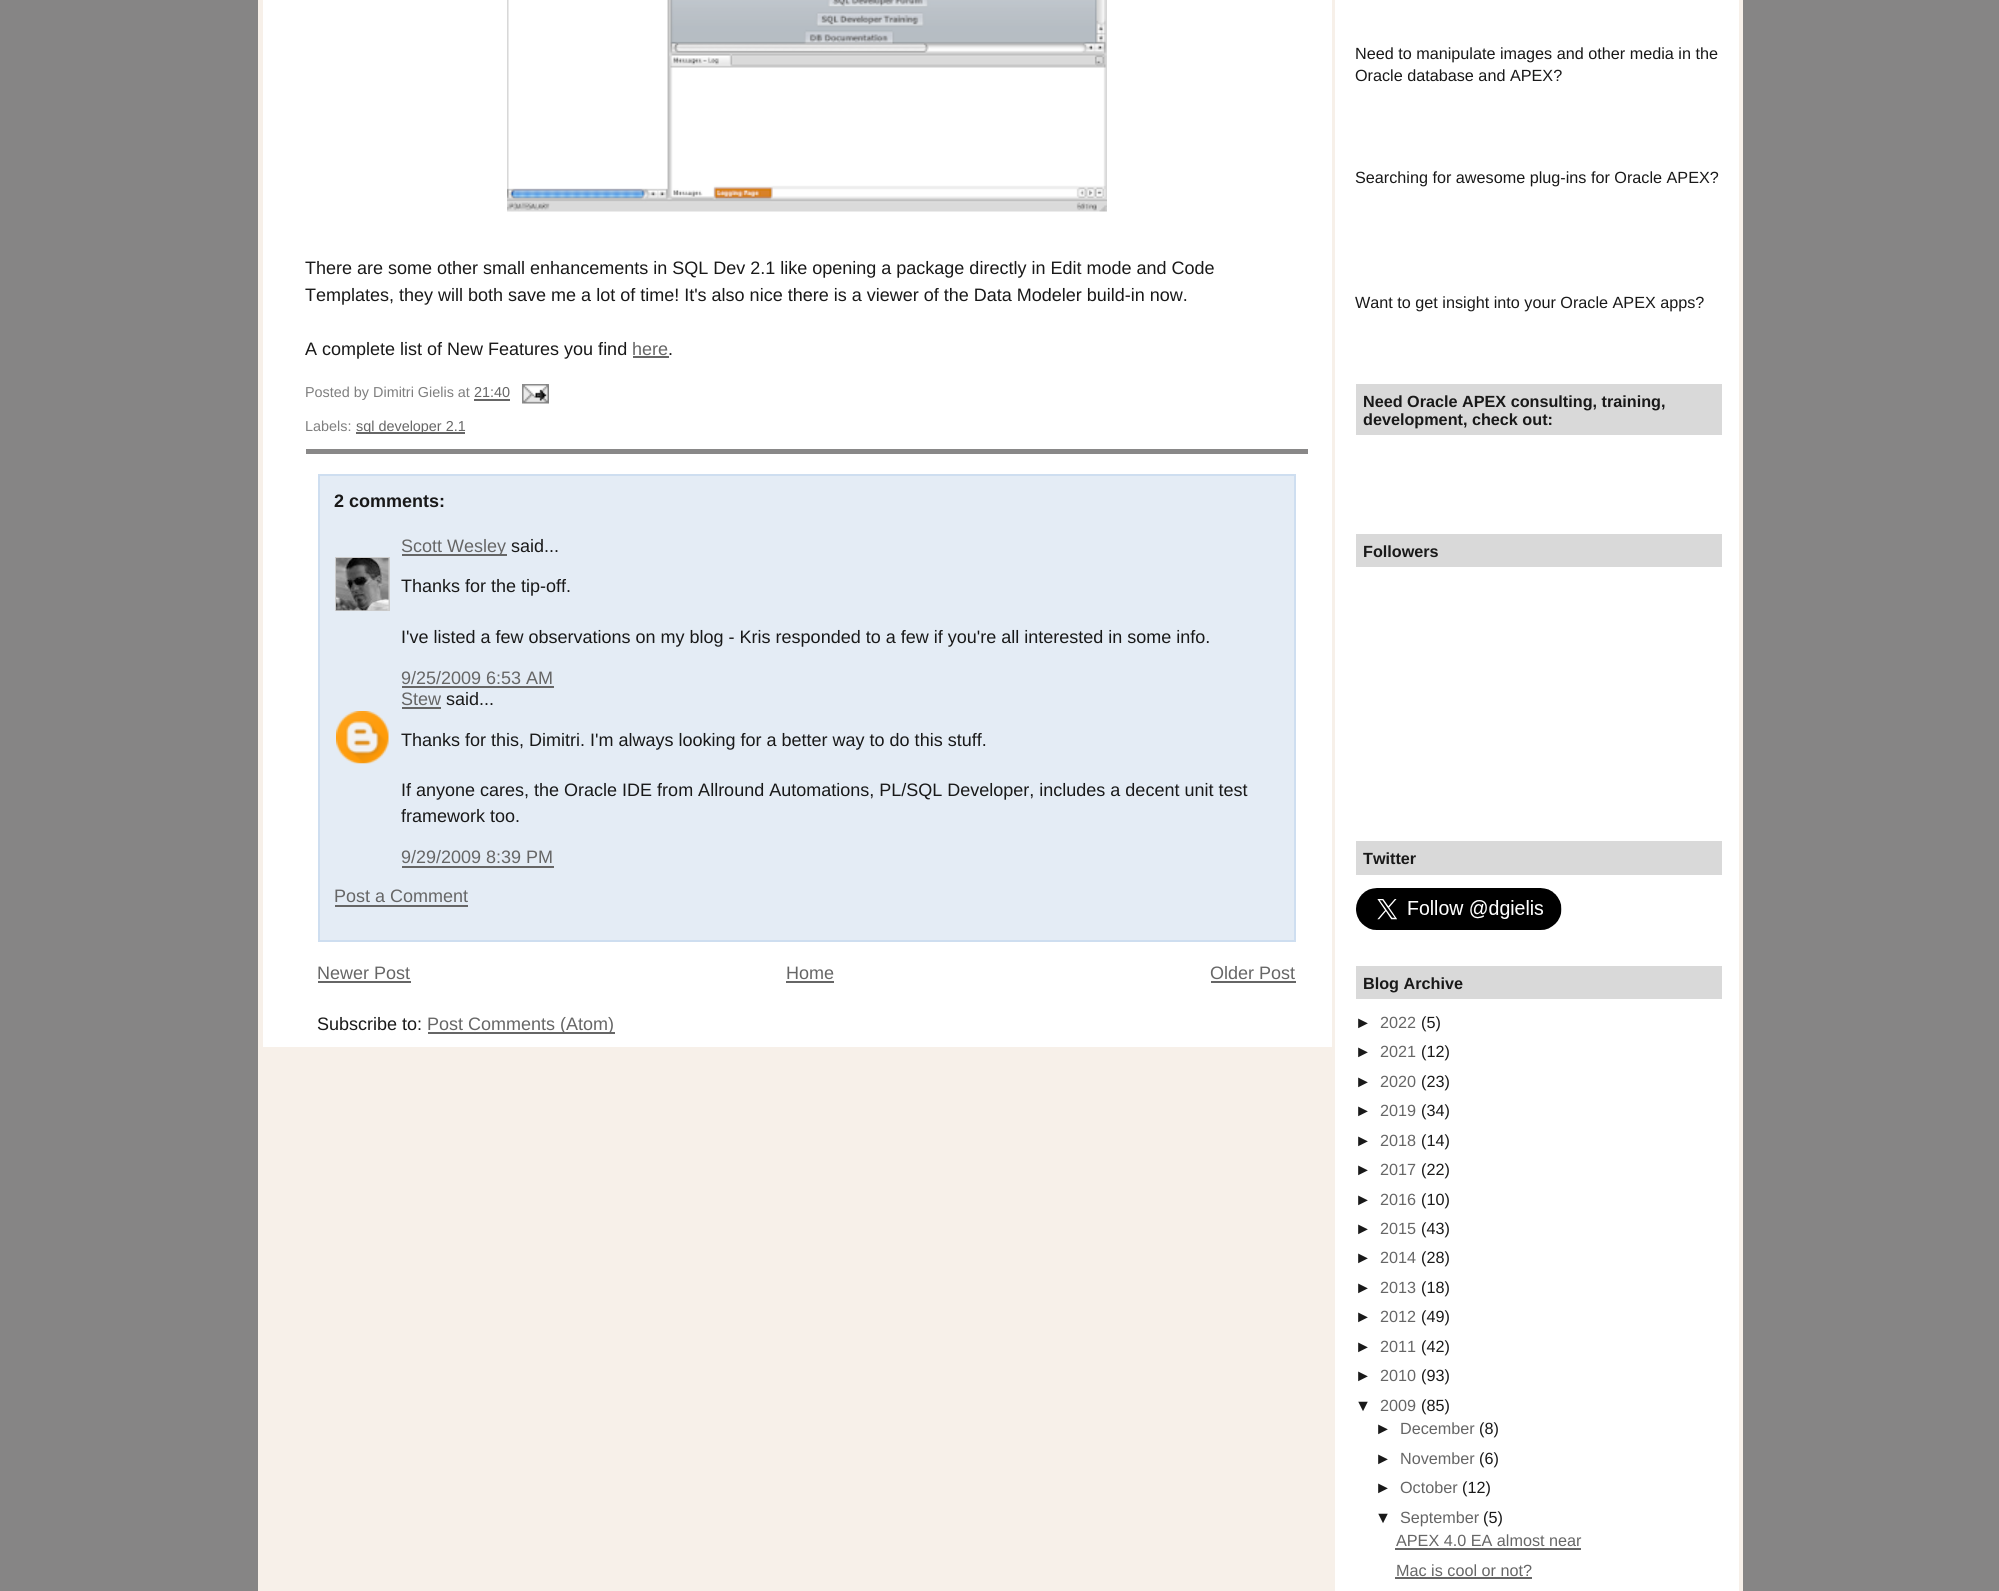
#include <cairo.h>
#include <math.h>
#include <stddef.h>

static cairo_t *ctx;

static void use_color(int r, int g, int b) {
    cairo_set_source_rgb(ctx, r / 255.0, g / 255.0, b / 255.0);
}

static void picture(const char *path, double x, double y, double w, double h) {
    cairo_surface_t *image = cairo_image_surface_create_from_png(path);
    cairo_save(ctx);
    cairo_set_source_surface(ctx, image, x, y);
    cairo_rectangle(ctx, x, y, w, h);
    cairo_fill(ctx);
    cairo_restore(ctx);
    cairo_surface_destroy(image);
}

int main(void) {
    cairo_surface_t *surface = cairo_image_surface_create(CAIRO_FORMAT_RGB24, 1999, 1591);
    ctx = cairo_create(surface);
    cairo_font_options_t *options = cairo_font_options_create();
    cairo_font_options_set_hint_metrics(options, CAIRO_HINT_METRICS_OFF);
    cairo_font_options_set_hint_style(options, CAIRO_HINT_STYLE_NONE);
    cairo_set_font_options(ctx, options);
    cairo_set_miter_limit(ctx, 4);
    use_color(134, 133, 133);
    cairo_paint(ctx);
    use_color(247, 240, 233);
    cairo_rectangle(ctx, 258, 0, 1485, 1591);
    cairo_fill(ctx);
    use_color(255, 255, 255);
    cairo_rectangle(ctx, 263, 0, 1069, 1047);
    cairo_fill(ctx);
    use_color(137, 136, 136);
    cairo_rectangle(ctx, 306, 449, 1002, 5);
    cairo_fill(ctx);
    picture("img1.png", 507, 0, 600, 212);
    cairo_select_font_face(ctx, "Liberation Sans", CAIRO_FONT_SLANT_NORMAL, CAIRO_FONT_WEIGHT_NORMAL);
    cairo_set_font_size(ctx, 18);
    use_color(25, 25, 25);
    cairo_move_to(ctx, 305, 274);
    cairo_show_text(ctx, "There are some other small enhancements in SQL Dev 2.1 like opening a package directly in Edit mode and Code");
    cairo_move_to(ctx, 305, 301);
    cairo_show_text(ctx, "Templates, they will both save me a lot of time! It's also nice there is a viewer of the Data Modeler build-in now.");
    cairo_move_to(ctx, 305, 355);
    cairo_show_text(ctx, "A complete list of New Features you find");
    use_color(102, 102, 102);
    cairo_move_to(ctx, 632, 355);
    cairo_show_text(ctx, "here");
    cairo_rectangle(ctx, 633, 356, 36, 2);
    cairo_fill(ctx);
    use_color(25, 25, 25);
    cairo_move_to(ctx, 668, 355);
    cairo_show_text(ctx, ".");
    cairo_set_font_size(ctx, 14.4);
    use_color(127, 127, 127);
    cairo_move_to(ctx, 305, 397);
    cairo_show_text(ctx, "Posted by Dimitri Gielis at");
    use_color(102, 102, 102);
    cairo_move_to(ctx, 474, 397);
    cairo_show_text(ctx, "21:40");
    cairo_rectangle(ctx, 474, 399, 36, 2);
    cairo_fill(ctx);
    picture("img2.png", 522, 384, 27, 20);
    use_color(127, 127, 127);
    cairo_move_to(ctx, 305, 431);
    cairo_show_text(ctx, "Labels:");
    use_color(102, 102, 102);
    cairo_rectangle(ctx, 356, 432, 109, 2);
    cairo_fill(ctx);
    cairo_move_to(ctx, 356, 431);
    cairo_show_text(ctx, "sql developer 2.1");
    use_color(228, 236, 245);
    cairo_rectangle(ctx, 319, 475, 976, 466);
    cairo_fill_preserve(ctx);
    use_color(206, 222, 240);
    cairo_stroke(ctx);
    cairo_select_font_face(ctx, "Liberation Sans", CAIRO_FONT_SLANT_NORMAL, CAIRO_FONT_WEIGHT_BOLD);
    cairo_set_font_size(ctx, 18);
    use_color(25, 25, 25);
    cairo_move_to(ctx, 334, 507);
    cairo_show_text(ctx, "2 comments:");
    use_color(102, 102, 102);
    cairo_rectangle(ctx, 402, 554, 105, 2);
    cairo_fill(ctx);
    cairo_select_font_face(ctx, "Liberation Sans", CAIRO_FONT_SLANT_NORMAL, CAIRO_FONT_WEIGHT_NORMAL);
    cairo_move_to(ctx, 401, 552);
    cairo_show_text(ctx, "Scott Wesley");
    use_color(25, 25, 25);
    cairo_move_to(ctx, 511, 552);
    cairo_show_text(ctx, "said...");
    cairo_save(ctx);
    cairo_rectangle(ctx, 335, 557, 55, 54);
    cairo_clip(ctx);
    cairo_rectangle(ctx, 336, 558, 53, 53);
    use_color(204, 204, 204);
    cairo_stroke(ctx);
    cairo_restore(ctx);
    picture("img3.png", 336, 558, 53, 53);
    cairo_move_to(ctx, 401, 592);
    cairo_show_text(ctx, "Thanks for the tip-off.");
    cairo_move_to(ctx, 401, 643);
    cairo_show_text(ctx, "I've listed a few observations on my blog - Kris responded to a few if you're all interested in some info.");
    use_color(102, 102, 102);
    cairo_move_to(ctx, 401, 684);
    cairo_show_text(ctx, "9/25/2009 6:53 AM");
    cairo_rectangle(ctx, 402, 686, 152, 2);
    cairo_fill(ctx);
    cairo_move_to(ctx, 401, 705);
    cairo_show_text(ctx, "Stew");
    cairo_rectangle(ctx, 402, 707, 39, 2);
    cairo_fill(ctx);
    use_color(25, 25, 25);
    cairo_move_to(ctx, 446, 705);
    cairo_show_text(ctx, "said...");
    picture("img4.png", 336, 711, 53, 53);
    cairo_move_to(ctx, 401, 746);
    cairo_show_text(ctx, "Thanks for this, Dimitri. I'm always looking for a better way to do this stuff.");
    cairo_move_to(ctx, 401, 796);
    cairo_show_text(ctx, "If anyone cares, the Oracle IDE from Allround Automations, PL/SQL Developer, includes a decent unit test");
    cairo_move_to(ctx, 401, 822);
    cairo_show_text(ctx, "framework too.");
    use_color(102, 102, 102);
    cairo_move_to(ctx, 401, 863);
    cairo_show_text(ctx, "9/29/2009 8:39 PM");
    cairo_rectangle(ctx, 402, 866, 152, 2);
    cairo_fill(ctx);
    cairo_move_to(ctx, 334, 902);
    cairo_show_text(ctx, "Post a Comment");
    cairo_rectangle(ctx, 335, 905, 133, 2);
    cairo_fill(ctx);
    cairo_move_to(ctx, 317, 979);
    cairo_show_text(ctx, "Newer Post");
    cairo_rectangle(ctx, 318, 981, 93, 2);
    cairo_fill(ctx);
    cairo_move_to(ctx, 786, 979);
    cairo_show_text(ctx, "Home");
    cairo_rectangle(ctx, 786, 981, 48, 2);
    cairo_fill(ctx);
    cairo_move_to(ctx, 1210, 979);
    cairo_show_text(ctx, "Older Post");
    cairo_rectangle(ctx, 1211, 981, 85, 2);
    cairo_fill(ctx);
    use_color(25, 25, 25);
    cairo_move_to(ctx, 317, 1030);
    cairo_show_text(ctx, "Subscribe to:");
    use_color(102, 102, 102);
    cairo_rectangle(ctx, 428, 1032, 187, 2);
    cairo_fill(ctx);
    cairo_move_to(ctx, 427, 1030);
    cairo_show_text(ctx, "Post Comments (Atom)");
    use_color(255, 255, 255);
    cairo_rectangle(ctx, 1335, 0, 404, 1591);
    cairo_fill(ctx);
    cairo_set_font_size(ctx, 16.2);
    use_color(25, 25, 25);
    cairo_move_to(ctx, 1355, 59);
    cairo_show_text(ctx, "Need to manipulate images and other media in the");
    cairo_move_to(ctx, 1355, 81);
    cairo_show_text(ctx, "Oracle database and APEX?");
    cairo_move_to(ctx, 1355, 183);
    cairo_show_text(ctx, "Searching for awesome plug-ins for Oracle APEX?");
    cairo_move_to(ctx, 1355, 308);
    cairo_show_text(ctx, "Want to get insight into your Oracle APEX apps?");
    use_color(217, 217, 217);
    cairo_rectangle(ctx, 1356, 384, 366, 51);
    cairo_fill(ctx);
    cairo_select_font_face(ctx, "Liberation Sans", CAIRO_FONT_SLANT_NORMAL, CAIRO_FONT_WEIGHT_BOLD);
    use_color(25, 25, 25);
    cairo_move_to(ctx, 1363, 407);
    cairo_show_text(ctx, "Need Oracle APEX consulting, training,");
    cairo_move_to(ctx, 1363, 425);
    cairo_show_text(ctx, "development, check out:");
    use_color(217, 217, 217);
    cairo_rectangle(ctx, 1356, 534, 366, 33);
    cairo_fill(ctx);
    use_color(25, 25, 25);
    cairo_move_to(ctx, 1363, 557);
    cairo_show_text(ctx, "Followers");
    use_color(217, 217, 217);
    cairo_rectangle(ctx, 1356, 841, 366, 34);
    cairo_fill(ctx);
    use_color(25, 25, 25);
    cairo_move_to(ctx, 1363, 864);
    cairo_show_text(ctx, "Twitter");
    picture("img5.png", 1356, 888, 206, 42);
    use_color(217, 217, 217);
    cairo_rectangle(ctx, 1356, 966, 366, 33);
    cairo_fill(ctx);
    use_color(25, 25, 25);
    cairo_move_to(ctx, 1363, 989);
    cairo_show_text(ctx, "Blog Archive");
    cairo_select_font_face(ctx, "Liberation Sans", CAIRO_FONT_SLANT_NORMAL, CAIRO_FONT_WEIGHT_NORMAL);
    cairo_move_to(ctx, 1355, 1028);
    cairo_show_text(ctx, "►");
    use_color(102, 102, 102);
    cairo_move_to(ctx, 1380, 1028);
    cairo_show_text(ctx, "2022");
    use_color(25, 25, 25);
    cairo_move_to(ctx, 1421, 1028);
    cairo_show_text(ctx, "(5)");
    cairo_move_to(ctx, 1355, 1057);
    cairo_show_text(ctx, "►");
    use_color(102, 102, 102);
    cairo_move_to(ctx, 1380, 1057);
    cairo_show_text(ctx, "2021");
    use_color(25, 25, 25);
    cairo_move_to(ctx, 1421, 1057);
    cairo_show_text(ctx, "(12)");
    cairo_move_to(ctx, 1355, 1087);
    cairo_show_text(ctx, "►");
    use_color(102, 102, 102);
    cairo_move_to(ctx, 1380, 1087);
    cairo_show_text(ctx, "2020");
    use_color(25, 25, 25);
    cairo_move_to(ctx, 1421, 1087);
    cairo_show_text(ctx, "(23)");
    cairo_move_to(ctx, 1355, 1116);
    cairo_show_text(ctx, "►");
    use_color(102, 102, 102);
    cairo_move_to(ctx, 1380, 1116);
    cairo_show_text(ctx, "2019");
    use_color(25, 25, 25);
    cairo_move_to(ctx, 1421, 1116);
    cairo_show_text(ctx, "(34)");
    cairo_move_to(ctx, 1355, 1146);
    cairo_show_text(ctx, "►");
    use_color(102, 102, 102);
    cairo_move_to(ctx, 1380, 1146);
    cairo_show_text(ctx, "2018");
    use_color(25, 25, 25);
    cairo_move_to(ctx, 1421, 1146);
    cairo_show_text(ctx, "(14)");
    cairo_move_to(ctx, 1355, 1175);
    cairo_show_text(ctx, "►");
    use_color(102, 102, 102);
    cairo_move_to(ctx, 1380, 1175);
    cairo_show_text(ctx, "2017");
    use_color(25, 25, 25);
    cairo_move_to(ctx, 1421, 1175);
    cairo_show_text(ctx, "(22)");
    cairo_move_to(ctx, 1355, 1205);
    cairo_show_text(ctx, "►");
    use_color(102, 102, 102);
    cairo_move_to(ctx, 1380, 1205);
    cairo_show_text(ctx, "2016");
    use_color(25, 25, 25);
    cairo_move_to(ctx, 1421, 1205);
    cairo_show_text(ctx, "(10)");
    cairo_move_to(ctx, 1355, 1234);
    cairo_show_text(ctx, "►");
    use_color(102, 102, 102);
    cairo_move_to(ctx, 1380, 1234);
    cairo_show_text(ctx, "2015");
    use_color(25, 25, 25);
    cairo_move_to(ctx, 1421, 1234);
    cairo_show_text(ctx, "(43)");
    cairo_move_to(ctx, 1355, 1263);
    cairo_show_text(ctx, "►");
    use_color(102, 102, 102);
    cairo_move_to(ctx, 1380, 1263);
    cairo_show_text(ctx, "2014");
    use_color(25, 25, 25);
    cairo_move_to(ctx, 1421, 1263);
    cairo_show_text(ctx, "(28)");
    cairo_move_to(ctx, 1355, 1293);
    cairo_show_text(ctx, "►");
    use_color(102, 102, 102);
    cairo_move_to(ctx, 1380, 1293);
    cairo_show_text(ctx, "2013");
    use_color(25, 25, 25);
    cairo_move_to(ctx, 1421, 1293);
    cairo_show_text(ctx, "(18)");
    cairo_move_to(ctx, 1355, 1322);
    cairo_show_text(ctx, "►");
    use_color(102, 102, 102);
    cairo_move_to(ctx, 1380, 1322);
    cairo_show_text(ctx, "2012");
    use_color(25, 25, 25);
    cairo_move_to(ctx, 1421, 1322);
    cairo_show_text(ctx, "(49)");
    cairo_move_to(ctx, 1355, 1352);
    cairo_show_text(ctx, "►");
    use_color(102, 102, 102);
    cairo_move_to(ctx, 1380, 1352);
    cairo_show_text(ctx, "2011");
    use_color(25, 25, 25);
    cairo_move_to(ctx, 1421, 1352);
    cairo_show_text(ctx, "(42)");
    cairo_move_to(ctx, 1355, 1381);
    cairo_show_text(ctx, "►");
    use_color(102, 102, 102);
    cairo_move_to(ctx, 1380, 1381);
    cairo_show_text(ctx, "2010");
    use_color(25, 25, 25);
    cairo_move_to(ctx, 1421, 1381);
    cairo_show_text(ctx, "(93)");
    cairo_move_to(ctx, 1355, 1411);
    cairo_show_text(ctx, "▼");
    use_color(102, 102, 102);
    cairo_move_to(ctx, 1380, 1411);
    cairo_show_text(ctx, "2009");
    use_color(25, 25, 25);
    cairo_move_to(ctx, 1421, 1411);
    cairo_show_text(ctx, "(85)");
    cairo_move_to(ctx, 1375, 1434);
    cairo_show_text(ctx, "►");
    use_color(102, 102, 102);
    cairo_move_to(ctx, 1400, 1434);
    cairo_show_text(ctx, "December");
    use_color(25, 25, 25);
    cairo_move_to(ctx, 1479, 1434);
    cairo_show_text(ctx, "(8)");
    cairo_move_to(ctx, 1375, 1464);
    cairo_show_text(ctx, "►");
    use_color(102, 102, 102);
    cairo_move_to(ctx, 1400, 1464);
    cairo_show_text(ctx, "November");
    use_color(25, 25, 25);
    cairo_move_to(ctx, 1479, 1464);
    cairo_show_text(ctx, "(6)");
    cairo_move_to(ctx, 1375, 1493);
    cairo_show_text(ctx, "►");
    use_color(102, 102, 102);
    cairo_move_to(ctx, 1400, 1493);
    cairo_show_text(ctx, "October");
    use_color(25, 25, 25);
    cairo_move_to(ctx, 1462, 1493);
    cairo_show_text(ctx, "(12)");
    cairo_move_to(ctx, 1375, 1523);
    cairo_show_text(ctx, "▼");
    use_color(102, 102, 102);
    cairo_move_to(ctx, 1400, 1523);
    cairo_show_text(ctx, "September");
    use_color(25, 25, 25);
    cairo_move_to(ctx, 1483, 1523);
    cairo_show_text(ctx, "(5)");
    use_color(102, 102, 102);
    cairo_move_to(ctx, 1396, 1546);
    cairo_show_text(ctx, "APEX 4.0 EA almost near");
    cairo_rectangle(ctx, 1395, 1548, 186, 2);
    cairo_fill(ctx);
    cairo_move_to(ctx, 1396, 1576);
    cairo_show_text(ctx, "Mac is cool or not?");
    cairo_rectangle(ctx, 1395, 1577, 137, 2);
    cairo_fill(ctx);
    cairo_surface_write_to_png(surface, "result.png");
    cairo_font_options_destroy(options);
    cairo_destroy(ctx);
    cairo_surface_destroy(surface);
    return 0;
}
